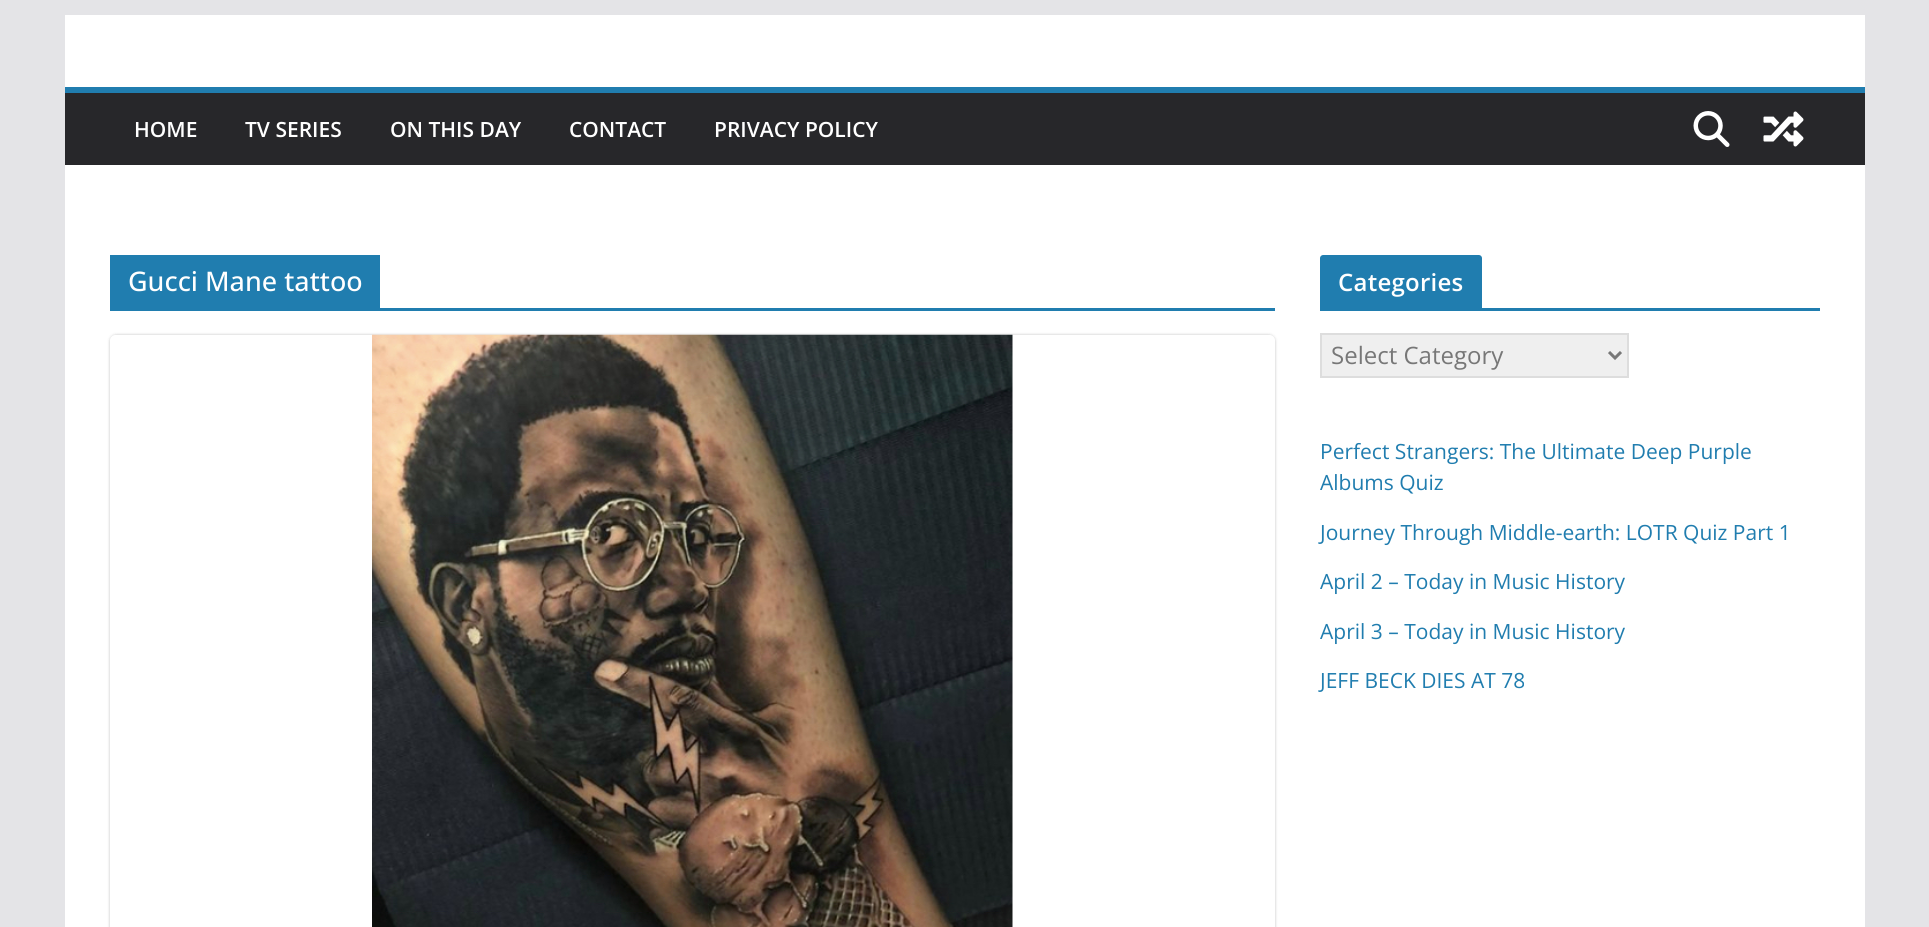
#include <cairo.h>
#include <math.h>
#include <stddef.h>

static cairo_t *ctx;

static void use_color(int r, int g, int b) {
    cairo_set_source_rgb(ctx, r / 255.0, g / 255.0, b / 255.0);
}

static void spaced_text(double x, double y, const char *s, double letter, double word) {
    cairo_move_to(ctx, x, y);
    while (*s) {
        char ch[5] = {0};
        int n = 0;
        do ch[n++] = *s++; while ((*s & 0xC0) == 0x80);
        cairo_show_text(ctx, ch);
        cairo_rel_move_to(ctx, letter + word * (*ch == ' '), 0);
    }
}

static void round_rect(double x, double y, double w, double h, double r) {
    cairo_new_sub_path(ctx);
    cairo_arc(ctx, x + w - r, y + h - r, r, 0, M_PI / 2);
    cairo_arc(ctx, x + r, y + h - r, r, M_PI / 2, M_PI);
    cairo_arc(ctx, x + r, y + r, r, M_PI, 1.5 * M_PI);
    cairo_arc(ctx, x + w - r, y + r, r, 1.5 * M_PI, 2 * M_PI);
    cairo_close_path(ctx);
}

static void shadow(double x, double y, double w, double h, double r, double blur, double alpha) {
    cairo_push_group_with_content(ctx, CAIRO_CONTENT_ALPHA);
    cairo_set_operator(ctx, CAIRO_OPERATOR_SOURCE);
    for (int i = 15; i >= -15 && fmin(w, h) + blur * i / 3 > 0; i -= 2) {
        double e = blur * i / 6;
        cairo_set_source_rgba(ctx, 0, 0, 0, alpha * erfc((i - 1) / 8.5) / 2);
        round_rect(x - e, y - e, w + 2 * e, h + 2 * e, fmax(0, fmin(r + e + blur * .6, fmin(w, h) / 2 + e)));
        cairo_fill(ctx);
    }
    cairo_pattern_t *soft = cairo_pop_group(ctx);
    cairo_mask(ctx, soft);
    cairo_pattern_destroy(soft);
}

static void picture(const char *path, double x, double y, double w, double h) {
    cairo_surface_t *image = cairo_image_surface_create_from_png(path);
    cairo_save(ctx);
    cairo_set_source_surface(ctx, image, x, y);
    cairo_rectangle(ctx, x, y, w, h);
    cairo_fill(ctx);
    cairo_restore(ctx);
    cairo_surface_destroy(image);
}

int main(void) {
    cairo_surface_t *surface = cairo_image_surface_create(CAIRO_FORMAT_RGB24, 1929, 927);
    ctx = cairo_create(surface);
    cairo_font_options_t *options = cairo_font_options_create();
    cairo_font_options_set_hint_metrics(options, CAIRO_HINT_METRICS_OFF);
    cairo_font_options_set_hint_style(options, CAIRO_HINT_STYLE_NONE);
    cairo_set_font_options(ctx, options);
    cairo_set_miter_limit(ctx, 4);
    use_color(228, 228, 231);
    cairo_paint(ctx);
    use_color(255, 255, 255);
    cairo_rectangle(ctx, 65, 15, 1800, 72);
    cairo_fill(ctx);
    use_color(39, 39, 42);
    cairo_rectangle(ctx, 65, 93, 1800, 72);
    cairo_fill(ctx);
    use_color(32, 125, 175);
    cairo_rectangle(ctx, 65, 87, 1800, 6);
    cairo_fill(ctx);
    cairo_select_font_face(ctx, "Open Sans SemiBold", CAIRO_FONT_SLANT_NORMAL, CAIRO_FONT_WEIGHT_NORMAL);
    cairo_set_font_size(ctx, 21);
    use_color(255, 255, 255);
    cairo_move_to(ctx, 134, 137);
    cairo_show_text(ctx, "HOME");
    cairo_move_to(ctx, 245, 137);
    cairo_show_text(ctx, "TV SERIES");
    cairo_move_to(ctx, 390, 137);
    cairo_show_text(ctx, "ON THIS DAY");
    cairo_move_to(ctx, 569, 137);
    cairo_show_text(ctx, "CONTACT");
    cairo_move_to(ctx, 714, 137);
    cairo_show_text(ctx, "PRIVACY POLICY");
    picture("img1.png", 1693, 111, 37, 36);
    picture("img2.png", 1763, 111, 41, 36);
    cairo_rectangle(ctx, 65, 165, 1800, 762);
    cairo_fill(ctx);
    use_color(32, 125, 175);
    cairo_rectangle(ctx, 110, 308, 1165, 3);
    cairo_fill(ctx);
    cairo_rectangle(ctx, 110, 255, 270, 53);
    cairo_fill(ctx);
    cairo_select_font_face(ctx, "Open Sans Medium", CAIRO_FONT_SLANT_NORMAL, CAIRO_FONT_WEIGHT_NORMAL);
    cairo_set_font_size(ctx, 27);
    use_color(255, 255, 255);
    cairo_move_to(ctx, 128, 291);
    cairo_show_text(ctx, "Gucci Mane tattoo");
    cairo_save(ctx);
    cairo_set_fill_rule(ctx, CAIRO_FILL_RULE_EVEN_ODD);
    cairo_new_path(ctx);
    cairo_move_to(ctx, 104, 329);
    cairo_line_to(ctx, 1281, 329);
    cairo_line_to(ctx, 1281, 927);
    cairo_line_to(ctx, 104, 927);
    cairo_close_path(ctx);
    cairo_move_to(ctx, 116, 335);
    cairo_line_to(ctx, 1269, 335);
    cairo_curve_to(ctx, 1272.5, 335, 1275, 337.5, 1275, 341);
    cairo_line_to(ctx, 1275, 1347);
    cairo_curve_to(ctx, 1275, 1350.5, 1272.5, 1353, 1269, 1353);
    cairo_line_to(ctx, 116, 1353);
    cairo_curve_to(ctx, 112.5, 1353, 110, 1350.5, 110, 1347);
    cairo_line_to(ctx, 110, 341);
    cairo_curve_to(ctx, 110, 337.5, 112.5, 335, 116, 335);
    cairo_close_path(ctx);
    cairo_clip(ctx);
    use_color(0, 0, 0);
    shadow(110, 335, 1165, 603, 6, 1.5, 0.24);
    cairo_restore(ctx);
    picture("img3.png", 372, 334, 641, 593);
    use_color(32, 125, 175);
    cairo_rectangle(ctx, 1320, 308, 500, 3);
    cairo_fill(ctx);
    cairo_new_path(ctx);
    cairo_move_to(ctx, 1323, 255);
    cairo_line_to(ctx, 1479, 255);
    cairo_curve_to(ctx, 1480.5, 255, 1482, 256.5, 1482, 258);
    cairo_line_to(ctx, 1482, 308);
    cairo_line_to(ctx, 1320, 308);
    cairo_line_to(ctx, 1320, 258);
    cairo_curve_to(ctx, 1320, 256.5, 1321.5, 255, 1323, 255);
    cairo_close_path(ctx);
    cairo_fill(ctx);
    cairo_select_font_face(ctx, "Open Sans SemiBold", CAIRO_FONT_SLANT_NORMAL, CAIRO_FONT_WEIGHT_NORMAL);
    cairo_set_font_size(ctx, 24);
    use_color(255, 255, 255);
    spaced_text(1338, 291, "Categories", 0.25, 0);
    use_color(239, 239, 239);
    cairo_rectangle(ctx, 1321, 334, 307, 43);
    cairo_fill_preserve(ctx);
    use_color(221, 221, 221);
    cairo_stroke(ctx);
    cairo_new_path(ctx);
    cairo_move_to(ctx, 1609, 352);
    cairo_line_to(ctx, 1615, 358);
    cairo_line_to(ctx, 1621, 352);
    use_color(119, 119, 119);
    cairo_set_line_width(ctx, 3);
    cairo_stroke(ctx);
    cairo_select_font_face(ctx, "Open Sans", CAIRO_FONT_SLANT_NORMAL, CAIRO_FONT_WEIGHT_NORMAL);
    cairo_move_to(ctx, 1331, 364);
    cairo_show_text(ctx, "Select Category");
    cairo_set_font_size(ctx, 21);
    use_color(32, 125, 175);
    cairo_move_to(ctx, 1320, 459);
    cairo_show_text(ctx, "Perfect Strangers: The Ultimate Deep Purple");
    cairo_move_to(ctx, 1320, 490);
    cairo_show_text(ctx, "Albums Quiz");
    cairo_move_to(ctx, 1320, 540);
    cairo_show_text(ctx, "Journey Through Middle-earth: LOTR Quiz Part 1");
    cairo_move_to(ctx, 1320, 589);
    cairo_show_text(ctx, "April 2 – Today in Music History");
    cairo_move_to(ctx, 1320, 639);
    cairo_show_text(ctx, "April 3 – Today in Music History");
    cairo_move_to(ctx, 1320, 688);
    cairo_show_text(ctx, "JEFF BECK DIES AT 78");
    cairo_surface_write_to_png(surface, "result.png");
    cairo_font_options_destroy(options);
    cairo_destroy(ctx);
    cairo_surface_destroy(surface);
    return 0;
}
